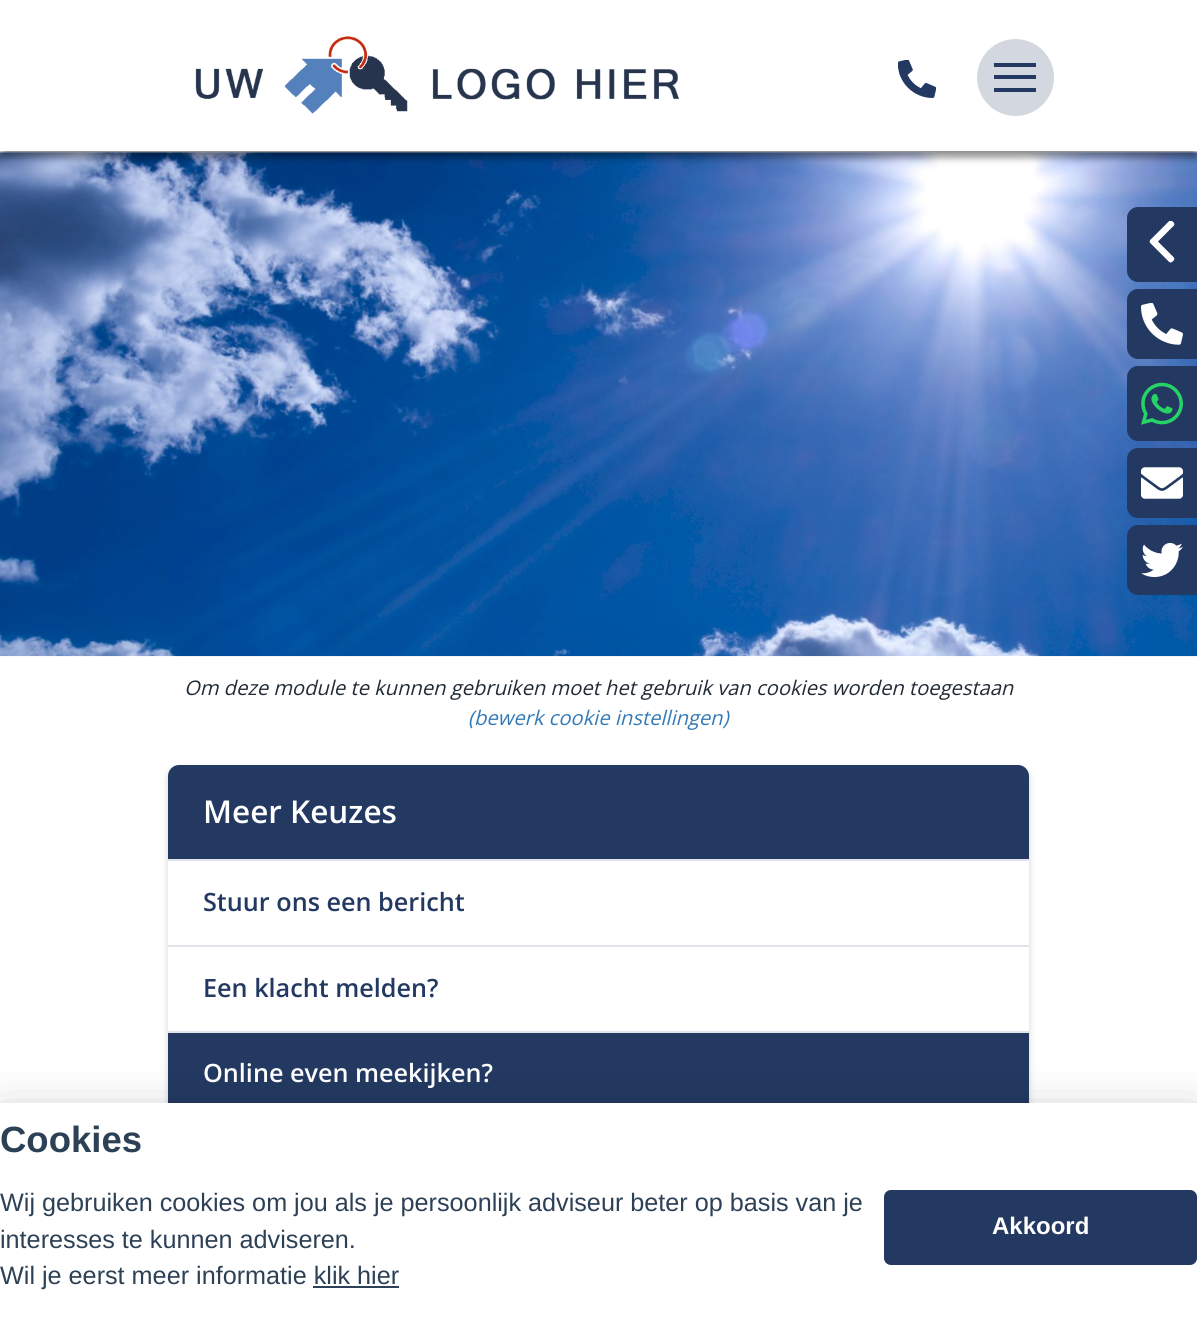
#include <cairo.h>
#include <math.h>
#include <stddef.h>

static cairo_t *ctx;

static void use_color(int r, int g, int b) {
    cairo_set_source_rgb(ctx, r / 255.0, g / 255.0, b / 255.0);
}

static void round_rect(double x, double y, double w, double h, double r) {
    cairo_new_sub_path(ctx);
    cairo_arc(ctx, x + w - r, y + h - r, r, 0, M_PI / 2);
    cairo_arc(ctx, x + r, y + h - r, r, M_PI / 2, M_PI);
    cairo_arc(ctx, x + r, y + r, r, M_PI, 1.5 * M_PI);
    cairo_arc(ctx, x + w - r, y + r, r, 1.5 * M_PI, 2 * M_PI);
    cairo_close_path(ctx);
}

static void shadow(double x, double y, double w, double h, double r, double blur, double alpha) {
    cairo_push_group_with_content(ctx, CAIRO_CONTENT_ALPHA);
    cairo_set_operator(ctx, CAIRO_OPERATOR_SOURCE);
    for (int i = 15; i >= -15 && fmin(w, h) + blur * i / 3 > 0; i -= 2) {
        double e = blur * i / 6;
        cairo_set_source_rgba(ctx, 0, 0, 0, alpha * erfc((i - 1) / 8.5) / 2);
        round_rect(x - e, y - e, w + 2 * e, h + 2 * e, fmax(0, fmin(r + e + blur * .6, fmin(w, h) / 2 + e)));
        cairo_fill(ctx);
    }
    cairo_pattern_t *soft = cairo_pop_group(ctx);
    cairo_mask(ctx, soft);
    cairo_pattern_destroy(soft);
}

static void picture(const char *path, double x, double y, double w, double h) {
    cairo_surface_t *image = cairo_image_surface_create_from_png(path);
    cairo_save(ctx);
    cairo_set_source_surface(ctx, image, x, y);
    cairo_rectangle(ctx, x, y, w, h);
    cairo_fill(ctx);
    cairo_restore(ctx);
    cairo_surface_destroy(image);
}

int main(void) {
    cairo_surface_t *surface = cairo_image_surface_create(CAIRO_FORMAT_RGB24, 1197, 1334);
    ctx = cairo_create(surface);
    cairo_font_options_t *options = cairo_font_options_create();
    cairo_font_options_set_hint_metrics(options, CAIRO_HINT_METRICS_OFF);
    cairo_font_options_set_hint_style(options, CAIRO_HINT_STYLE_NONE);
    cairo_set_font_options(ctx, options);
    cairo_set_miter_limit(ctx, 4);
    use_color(255, 255, 255);
    cairo_paint(ctx);
    use_color(236, 239, 247);
    cairo_set_fill_rule(ctx, CAIRO_FILL_RULE_EVEN_ODD);
    cairo_new_path(ctx);
    cairo_move_to(ctx, 7, 112);
    cairo_line_to(ctx, 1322, 112);
    cairo_curve_to(ctx, 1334, 225, 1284, 294, 1173, 320);
    cairo_curve_to(ctx, 1056, 348, 870, 341, 652, 350);
    cairo_curve_to(ctx, 393, 361, 178, 413, 7, 504);
    cairo_close_path(ctx);
    cairo_fill(ctx);
    picture("img8.png", 0, 152, 1197, 505);
    use_color(0, 0, 0);
    shadow(0, 7, 1197, 151, 0, 3.5, 0.4);
    use_color(255, 255, 255);
    cairo_rectangle(ctx, 0, 0, 1197, 151);
    cairo_fill(ctx);
    picture("img1.png", 195, 36, 484, 78);
    picture("img2.png", 898, 60, 38, 38);
    use_color(211, 216, 224);
    cairo_arc(ctx, 1015.5, 77.5, 38.5, 0, 2 * M_PI);
    cairo_fill(ctx);
    use_color(35, 57, 97);
    cairo_rectangle(ctx, 994, 63, 42, 4);
    cairo_fill(ctx);
    cairo_rectangle(ctx, 994, 75, 42, 4);
    cairo_fill(ctx);
    cairo_rectangle(ctx, 994, 88, 42, 4);
    cairo_fill(ctx);
    cairo_new_path(ctx);
    cairo_move_to(ctx, 1138, 207);
    cairo_line_to(ctx, 1197, 207);
    cairo_line_to(ctx, 1197, 282);
    cairo_line_to(ctx, 1138, 282);
    cairo_curve_to(ctx, 1132, 282, 1127, 277, 1127, 271);
    cairo_line_to(ctx, 1127, 218);
    cairo_curve_to(ctx, 1127, 212, 1132, 207, 1138, 207);
    cairo_close_path(ctx);
    cairo_fill(ctx);
    picture("img3.png", 1149, 221, 26, 42);
    cairo_new_path(ctx);
    cairo_move_to(ctx, 1138, 289);
    cairo_line_to(ctx, 1197, 289);
    cairo_line_to(ctx, 1197, 359);
    cairo_line_to(ctx, 1138, 359);
    cairo_curve_to(ctx, 1132, 359, 1127, 354, 1127, 348);
    cairo_line_to(ctx, 1127, 300);
    cairo_curve_to(ctx, 1127, 294, 1132, 289, 1138, 289);
    cairo_close_path(ctx);
    cairo_fill(ctx);
    picture("img4.png", 1141, 303, 42, 42);
    cairo_new_path(ctx);
    cairo_move_to(ctx, 1138, 366);
    cairo_line_to(ctx, 1197, 366);
    cairo_line_to(ctx, 1197, 441);
    cairo_line_to(ctx, 1138, 441);
    cairo_curve_to(ctx, 1132, 441, 1127, 436, 1127, 430);
    cairo_line_to(ctx, 1127, 377);
    cairo_curve_to(ctx, 1127, 371, 1132, 366, 1138, 366);
    cairo_close_path(ctx);
    cairo_fill(ctx);
    picture("img5.png", 1141, 382, 42, 43);
    cairo_new_path(ctx);
    cairo_move_to(ctx, 1138, 448);
    cairo_line_to(ctx, 1197, 448);
    cairo_line_to(ctx, 1197, 518);
    cairo_line_to(ctx, 1138, 518);
    cairo_curve_to(ctx, 1132, 518, 1127, 513, 1127, 507);
    cairo_line_to(ctx, 1127, 459);
    cairo_curve_to(ctx, 1127, 453, 1132, 448, 1138, 448);
    cairo_close_path(ctx);
    cairo_fill(ctx);
    picture("img6.png", 1141, 467, 42, 32);
    cairo_new_path(ctx);
    cairo_move_to(ctx, 1138, 525);
    cairo_line_to(ctx, 1197, 525);
    cairo_line_to(ctx, 1197, 595);
    cairo_line_to(ctx, 1138, 595);
    cairo_curve_to(ctx, 1132, 595, 1127, 590, 1127, 584);
    cairo_line_to(ctx, 1127, 536);
    cairo_curve_to(ctx, 1127, 530, 1132, 525, 1138, 525);
    cairo_close_path(ctx);
    cairo_fill(ctx);
    picture("img7.png", 1141, 543, 42, 35);
    cairo_select_font_face(ctx, "Open Sans", CAIRO_FONT_SLANT_ITALIC, CAIRO_FONT_WEIGHT_NORMAL);
    cairo_set_font_size(ctx, 20.15);
    use_color(33, 43, 54);
    cairo_move_to(ctx, 184, 695);
    cairo_show_text(ctx, "Om deze module te kunnen gebruiken moet het gebruik van cookies worden toegestaan");
    use_color(51, 122, 183);
    cairo_move_to(ctx, 468, 725);
    cairo_show_text(ctx, "(bewerk cookie instellingen)");
    use_color(0, 0, 0);
    shadow(168, 768, 861, 361, 11, 3.5, 0.17);
    use_color(255, 255, 255);
    cairo_new_path(ctx);
    cairo_move_to(ctx, 179, 765);
    cairo_line_to(ctx, 1018, 765);
    cairo_curve_to(ctx, 1024, 765, 1029, 770, 1029, 776);
    cairo_line_to(ctx, 1029, 1125);
    cairo_line_to(ctx, 168, 1125);
    cairo_line_to(ctx, 168, 776);
    cairo_curve_to(ctx, 168, 770, 173, 765, 179, 765);
    cairo_close_path(ctx);
    cairo_fill(ctx);
    use_color(35, 57, 97);
    cairo_new_path(ctx);
    cairo_move_to(ctx, 179, 765);
    cairo_line_to(ctx, 1018, 765);
    cairo_curve_to(ctx, 1024, 765, 1029, 770, 1029, 776);
    cairo_line_to(ctx, 1029, 859);
    cairo_line_to(ctx, 168, 859);
    cairo_line_to(ctx, 168, 776);
    cairo_curve_to(ctx, 168, 770, 173, 765, 179, 765);
    cairo_close_path(ctx);
    cairo_fill(ctx);
    cairo_select_font_face(ctx, "Open Sans SemiBold", CAIRO_FONT_SLANT_NORMAL, CAIRO_FONT_WEIGHT_NORMAL);
    cairo_set_font_size(ctx, 31.5);
    use_color(255, 255, 255);
    cairo_move_to(ctx, 203, 823);
    cairo_show_text(ctx, "Meer Keuzes");
    use_color(226, 228, 237);
    cairo_rectangle(ctx, 168, 859, 861, 2);
    cairo_fill(ctx);
    cairo_set_font_size(ctx, 25.2);
    use_color(35, 57, 97);
    cairo_move_to(ctx, 203, 911);
    cairo_show_text(ctx, "Stuur ons een bericht");
    use_color(226, 228, 237);
    cairo_rectangle(ctx, 168, 945, 861, 2);
    cairo_fill(ctx);
    use_color(35, 57, 97);
    cairo_move_to(ctx, 203, 997);
    cairo_show_text(ctx, "Een klacht melden?");
    cairo_rectangle(ctx, 168, 1033, 861, 70);
    cairo_fill(ctx);
    use_color(226, 228, 237);
    cairo_rectangle(ctx, 168, 1031, 861, 2);
    cairo_fill(ctx);
    use_color(255, 255, 255);
    cairo_move_to(ctx, 203, 1082);
    cairo_show_text(ctx, "Online even meekijken?");
    use_color(2, 2, 3);
    shadow(0, 1120, 1197, 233, 0, 26, 0.28);
    use_color(255, 255, 255);
    cairo_rectangle(ctx, 0, 1103, 1197, 231);
    cairo_fill(ctx);
    cairo_select_font_face(ctx, "Liberation Sans", CAIRO_FONT_SLANT_NORMAL, CAIRO_FONT_WEIGHT_BOLD);
    cairo_set_font_size(ctx, 36.5);
    use_color(45, 65, 86);
    cairo_move_to(ctx, 0, 1152);
    cairo_show_text(ctx, "Cookies");
    cairo_select_font_face(ctx, "Liberation Sans", CAIRO_FONT_SLANT_NORMAL, CAIRO_FONT_WEIGHT_NORMAL);
    cairo_set_font_size(ctx, 25.2);
    cairo_move_to(ctx, 0, 1211);
    cairo_show_text(ctx, "Wij gebruiken cookies om jou als je persoonlijk adviseur beter op basis van je");
    cairo_move_to(ctx, 0, 1248);
    cairo_show_text(ctx, "interesses te kunnen adviseren.");
    cairo_move_to(ctx, 0, 1284);
    cairo_show_text(ctx, "Wil je eerst meer informatie klik hier");
    cairo_rectangle(ctx, 313, 1286, 86, 2);
    cairo_fill(ctx);
    use_color(35, 57, 97);
    round_rect(884, 1190, 313, 75, 7);
    cairo_fill(ctx);
    cairo_select_font_face(ctx, "Liberation Sans", CAIRO_FONT_SLANT_NORMAL, CAIRO_FONT_WEIGHT_BOLD);
    cairo_set_font_size(ctx, 24);
    use_color(255, 255, 255);
    cairo_move_to(ctx, 992, 1234);
    cairo_show_text(ctx, "Akkoord");
    cairo_surface_write_to_png(surface, "result.png");
    cairo_font_options_destroy(options);
    cairo_destroy(ctx);
    cairo_surface_destroy(surface);
    return 0;
}
